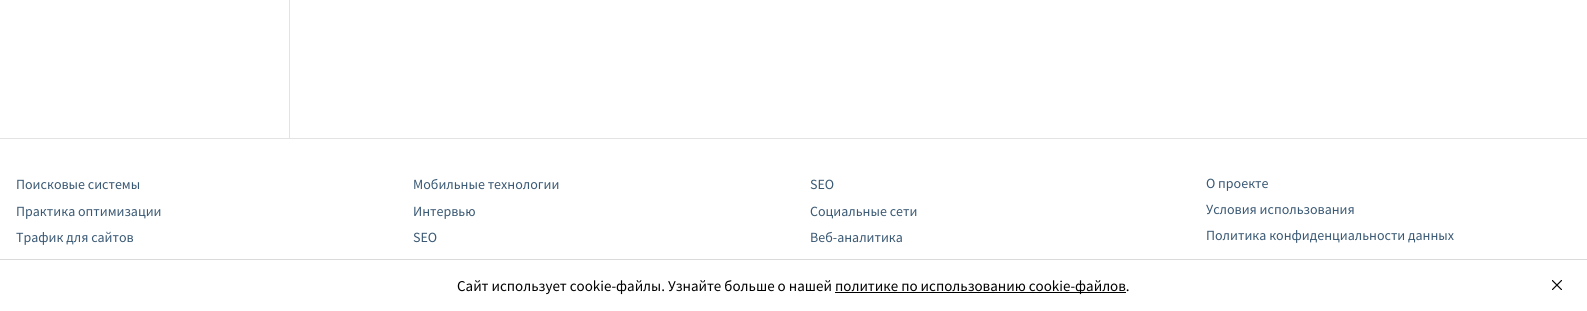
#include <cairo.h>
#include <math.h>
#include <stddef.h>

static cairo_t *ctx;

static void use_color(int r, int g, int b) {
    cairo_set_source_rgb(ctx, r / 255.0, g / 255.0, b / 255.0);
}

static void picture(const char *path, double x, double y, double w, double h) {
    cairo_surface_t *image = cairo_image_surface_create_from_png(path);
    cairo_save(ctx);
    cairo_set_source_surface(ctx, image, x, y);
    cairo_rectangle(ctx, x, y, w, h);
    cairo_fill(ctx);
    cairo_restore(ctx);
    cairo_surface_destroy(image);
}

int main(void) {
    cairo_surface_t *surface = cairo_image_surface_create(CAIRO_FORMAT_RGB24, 1587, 311);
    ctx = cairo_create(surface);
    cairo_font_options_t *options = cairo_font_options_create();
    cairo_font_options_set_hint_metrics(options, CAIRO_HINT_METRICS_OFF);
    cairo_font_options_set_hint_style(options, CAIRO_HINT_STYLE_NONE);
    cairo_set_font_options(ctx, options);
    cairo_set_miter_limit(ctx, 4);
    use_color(255, 255, 255);
    cairo_paint(ctx);
    use_color(227, 227, 227);
    cairo_rectangle(ctx, 289, 0, 1, 138);
    cairo_fill(ctx);
    cairo_rectangle(ctx, 0, 138, 1587, 1);
    cairo_fill(ctx);
    cairo_select_font_face(ctx, "Source Sans Pro", CAIRO_FONT_SLANT_NORMAL, CAIRO_FONT_WEIGHT_NORMAL);
    cairo_set_font_size(ctx, 14);
    use_color(57, 88, 115);
    cairo_move_to(ctx, 16, 189);
    cairo_show_text(ctx, "Поисковые системы");
    cairo_move_to(ctx, 16, 216);
    cairo_show_text(ctx, "Практика оптимизации");
    cairo_move_to(ctx, 16, 242);
    cairo_show_text(ctx, "Трафик для сайтов");
    cairo_move_to(ctx, 413, 189);
    cairo_show_text(ctx, "Мобильные технологии");
    cairo_move_to(ctx, 413, 216);
    cairo_show_text(ctx, "Интервью");
    cairo_move_to(ctx, 413, 242);
    cairo_show_text(ctx, "SEO");
    cairo_move_to(ctx, 810, 189);
    cairo_show_text(ctx, "SEO");
    cairo_move_to(ctx, 810, 216);
    cairo_show_text(ctx, "Социальные сети");
    cairo_move_to(ctx, 810, 242);
    cairo_show_text(ctx, "Веб-аналитика");
    cairo_move_to(ctx, 1206, 188);
    cairo_show_text(ctx, "О проекте");
    cairo_move_to(ctx, 1206, 214);
    cairo_show_text(ctx, "Условия использования");
    cairo_move_to(ctx, 1206, 240);
    cairo_show_text(ctx, "Политика конфиденциальности данных");
    use_color(218, 218, 218);
    cairo_rectangle(ctx, 0, 259, 1587, 1);
    cairo_fill(ctx);
    cairo_set_font_size(ctx, 15);
    use_color(0, 0, 0);
    cairo_move_to(ctx, 457, 291);
    cairo_show_text(ctx, "Сайт использует cookie-файлы. Узнайте больше о нашей");
    cairo_rectangle(ctx, 835, 292, 291, 1);
    cairo_fill(ctx);
    cairo_move_to(ctx, 835, 291);
    cairo_show_text(ctx, "политике по использованию cookie-файлов.");
    picture("img1.png", 1552, 280, 10, 10);
    cairo_surface_write_to_png(surface, "result.png");
    cairo_font_options_destroy(options);
    cairo_destroy(ctx);
    cairo_surface_destroy(surface);
    return 0;
}
